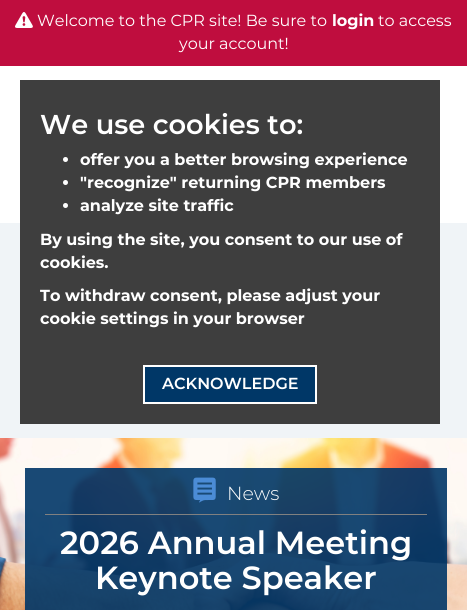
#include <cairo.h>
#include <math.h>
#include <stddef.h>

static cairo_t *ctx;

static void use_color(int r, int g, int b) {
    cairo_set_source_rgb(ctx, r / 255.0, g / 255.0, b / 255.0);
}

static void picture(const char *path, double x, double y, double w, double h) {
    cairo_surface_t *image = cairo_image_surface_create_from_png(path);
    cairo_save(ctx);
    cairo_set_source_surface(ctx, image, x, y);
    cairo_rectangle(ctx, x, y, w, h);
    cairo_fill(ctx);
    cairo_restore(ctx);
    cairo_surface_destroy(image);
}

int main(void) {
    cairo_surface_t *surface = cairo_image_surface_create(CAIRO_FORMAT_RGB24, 467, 610);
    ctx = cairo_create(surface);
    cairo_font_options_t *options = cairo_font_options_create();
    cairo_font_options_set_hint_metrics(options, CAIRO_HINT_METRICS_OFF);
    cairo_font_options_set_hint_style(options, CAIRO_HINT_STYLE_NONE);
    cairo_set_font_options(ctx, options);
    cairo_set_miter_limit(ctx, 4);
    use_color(191, 13, 62);
    cairo_paint(ctx);
    picture("img1.png", 15, 12, 18, 16);
    cairo_select_font_face(ctx, "Montserrat", CAIRO_FONT_SLANT_NORMAL, CAIRO_FONT_WEIGHT_NORMAL);
    cairo_set_font_size(ctx, 16);
    use_color(255, 255, 255);
    cairo_move_to(ctx, 37, 26);
    cairo_show_text(ctx, "Welcome to the CPR site! Be sure to");
    cairo_select_font_face(ctx, "Montserrat", CAIRO_FONT_SLANT_NORMAL, CAIRO_FONT_WEIGHT_BOLD);
    cairo_move_to(ctx, 332, 26);
    cairo_show_text(ctx, "login");
    cairo_select_font_face(ctx, "Montserrat", CAIRO_FONT_SLANT_NORMAL, CAIRO_FONT_WEIGHT_NORMAL);
    cairo_move_to(ctx, 378, 26);
    cairo_show_text(ctx, "to access");
    cairo_move_to(ctx, 179, 49);
    cairo_show_text(ctx, "your account!");
    use_color(240, 244, 247);
    cairo_rectangle(ctx, 0, 223, 467, 215);
    cairo_fill(ctx);
    use_color(255, 255, 255);
    cairo_rectangle(ctx, 0, 66, 467, 157);
    cairo_fill(ctx);
    use_color(62, 62, 62);
    cairo_rectangle(ctx, 20, 80, 420, 344);
    cairo_fill(ctx);
    cairo_select_font_face(ctx, "Montserrat SemiBold", CAIRO_FONT_SLANT_NORMAL, CAIRO_FONT_WEIGHT_NORMAL);
    cairo_set_font_size(ctx, 27.25);
    use_color(255, 255, 255);
    cairo_move_to(ctx, 40, 134);
    cairo_show_text(ctx, "We use cookies to:");
    cairo_new_path(ctx);
    cairo_arc(ctx, 65.5, 159.5, 2.5, 0, 2 * M_PI);
    cairo_fill(ctx);
    cairo_select_font_face(ctx, "Montserrat", CAIRO_FONT_SLANT_NORMAL, CAIRO_FONT_WEIGHT_BOLD);
    cairo_set_font_size(ctx, 16);
    cairo_move_to(ctx, 80, 165);
    cairo_show_text(ctx, "offer you a better browsing experience");
    cairo_new_path(ctx);
    cairo_arc(ctx, 65.5, 182.5, 2.5, 0, 2 * M_PI);
    cairo_fill(ctx);
    cairo_move_to(ctx, 80, 188);
    cairo_show_text(ctx, "\"recognize\" returning CPR members");
    cairo_new_path(ctx);
    cairo_arc(ctx, 65.5, 205.5, 2.5, 0, 2 * M_PI);
    cairo_fill(ctx);
    cairo_move_to(ctx, 80, 211);
    cairo_show_text(ctx, "analyze site traffic");
    cairo_move_to(ctx, 40, 245);
    cairo_show_text(ctx, "By using the site, you consent to our use of");
    cairo_move_to(ctx, 40, 268);
    cairo_show_text(ctx, "cookies.");
    cairo_move_to(ctx, 40, 301);
    cairo_show_text(ctx, "To withdraw consent, please adjust your");
    cairo_move_to(ctx, 40, 324);
    cairo_show_text(ctx, "cookie settings in your browser");
    use_color(0, 55, 103);
    cairo_rectangle(ctx, 144, 366, 172, 37);
    cairo_fill_preserve(ctx);
    use_color(255, 255, 255);
    cairo_stroke(ctx);
    cairo_select_font_face(ctx, "Montserrat SemiBold", CAIRO_FONT_SLANT_NORMAL, CAIRO_FONT_WEIGHT_NORMAL);
    cairo_move_to(ctx, 162, 389);
    cairo_show_text(ctx, "ACKNOWLEDGE");
    picture("img2.png", 0, 438, 467, 172);
    cairo_set_source_rgba(ctx, 0, 0.216, 0.404, 0.9);
    cairo_rectangle(ctx, 25, 468, 422, 142);
    cairo_fill(ctx);
    picture("img3.png", 193, 477, 23, 26);
    cairo_select_font_face(ctx, "Montserrat Light", CAIRO_FONT_SLANT_NORMAL, CAIRO_FONT_WEIGHT_NORMAL);
    cairo_set_font_size(ctx, 19);
    use_color(255, 255, 255);
    cairo_move_to(ctx, 227, 500);
    cairo_show_text(ctx, "News");
    use_color(128, 128, 128);
    cairo_rectangle(ctx, 45, 514, 382, 1);
    cairo_fill(ctx);
    cairo_select_font_face(ctx, "Montserrat SemiBold", CAIRO_FONT_SLANT_NORMAL, CAIRO_FONT_WEIGHT_NORMAL);
    cairo_set_font_size(ctx, 32);
    use_color(255, 255, 255);
    cairo_move_to(ctx, 60, 554);
    cairo_show_text(ctx, "2026 Annual Meeting");
    cairo_move_to(ctx, 95, 589);
    cairo_show_text(ctx, "Keynote Speaker");
    cairo_surface_write_to_png(surface, "result.png");
    cairo_font_options_destroy(options);
    cairo_destroy(ctx);
    cairo_surface_destroy(surface);
    return 0;
}
